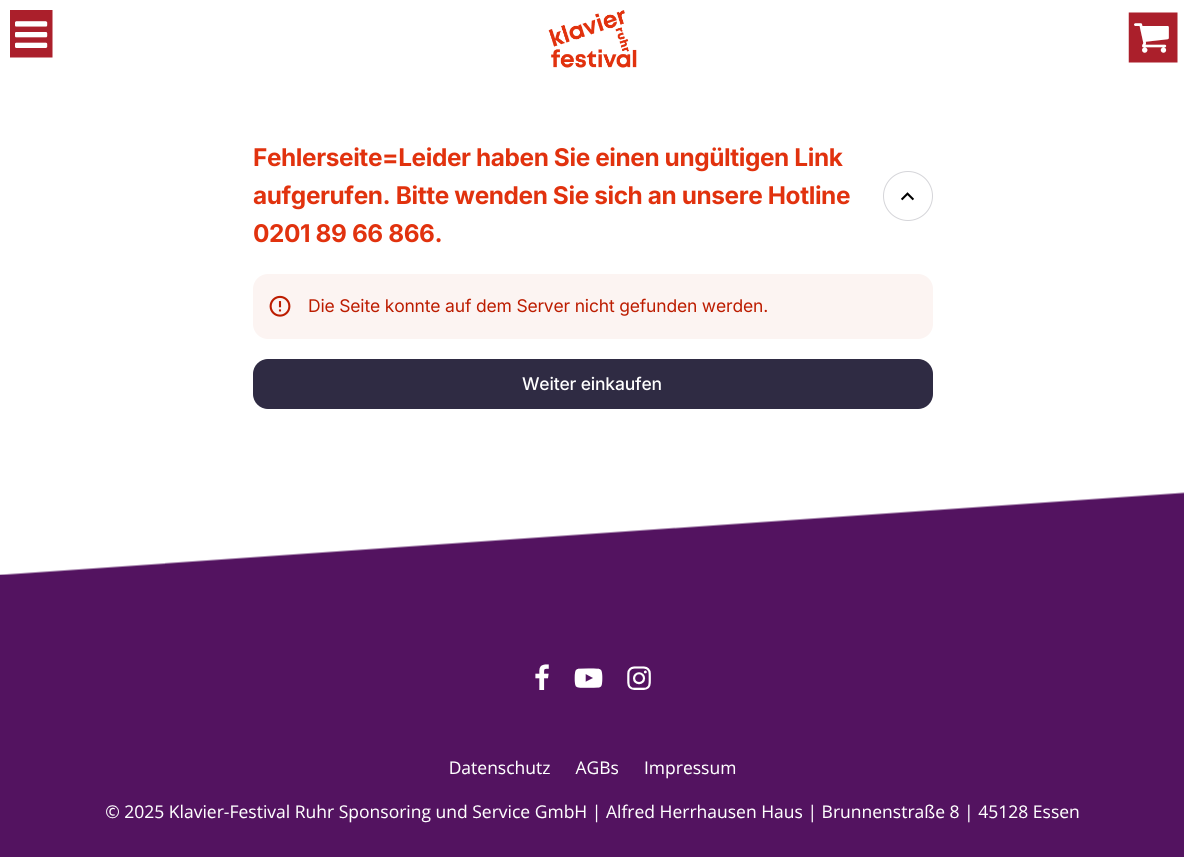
#include <cairo.h>
#include <math.h>
#include <stddef.h>

static cairo_t *ctx;

static void use_color(int r, int g, int b) {
    cairo_set_source_rgb(ctx, r / 255.0, g / 255.0, b / 255.0);
}

static void spaced_text(double x, double y, const char *s, double letter, double word) {
    cairo_move_to(ctx, x, y);
    while (*s) {
        char ch[5] = {0};
        int n = 0;
        do ch[n++] = *s++; while ((*s & 0xC0) == 0x80);
        cairo_show_text(ctx, ch);
        cairo_rel_move_to(ctx, letter + word * (*ch == ' '), 0);
    }
}

static void round_rect(double x, double y, double w, double h, double r) {
    cairo_new_sub_path(ctx);
    cairo_arc(ctx, x + w - r, y + h - r, r, 0, M_PI / 2);
    cairo_arc(ctx, x + r, y + h - r, r, M_PI / 2, M_PI);
    cairo_arc(ctx, x + r, y + r, r, M_PI, 1.5 * M_PI);
    cairo_arc(ctx, x + w - r, y + r, r, 1.5 * M_PI, 2 * M_PI);
    cairo_close_path(ctx);
}

static void picture(const char *path, double x, double y, double w, double h) {
    cairo_surface_t *image = cairo_image_surface_create_from_png(path);
    cairo_save(ctx);
    cairo_set_source_surface(ctx, image, x, y);
    cairo_rectangle(ctx, x, y, w, h);
    cairo_fill(ctx);
    cairo_restore(ctx);
    cairo_surface_destroy(image);
}

int main(void) {
    cairo_surface_t *surface = cairo_image_surface_create(CAIRO_FORMAT_RGB24, 1184, 857);
    ctx = cairo_create(surface);
    cairo_font_options_t *options = cairo_font_options_create();
    cairo_font_options_set_hint_metrics(options, CAIRO_HINT_METRICS_OFF);
    cairo_font_options_set_hint_style(options, CAIRO_HINT_STYLE_NONE);
    cairo_set_font_options(ctx, options);
    cairo_set_miter_limit(ctx, 4);
    use_color(255, 255, 255);
    cairo_paint(ctx);
    picture("img1.png", 10, 10, 1168, 58);
    cairo_select_font_face(ctx, "Inter", CAIRO_FONT_SLANT_NORMAL, CAIRO_FONT_WEIGHT_BOLD);
    cairo_set_font_size(ctx, 24.4);
    use_color(225, 50, 14);
    spaced_text(253, 166, "Fehlerseite=Leider haben Sie einen ungültigen Link", -0.4, 0);
    spaced_text(253, 204, "aufgerufen. Bitte wenden Sie sich an unsere Hotline", -0.4, 0);
    spaced_text(253, 242, "0201 89 66 866.", -0.4, 0);
    cairo_new_path(ctx);
    cairo_arc(ctx, 908, 196, 24.5, 0, 2 * M_PI);
    use_color(213, 213, 217);
    cairo_set_line_width(ctx, 1);
    cairo_stroke(ctx);
    picture("img2.png", 901, 192, 13, 9);
    use_color(252, 244, 242);
    round_rect(253, 274, 680, 65, 15);
    cairo_fill(ctx);
    picture("img3.png", 269, 295, 22, 22);
    cairo_select_font_face(ctx, "Inter", CAIRO_FONT_SLANT_NORMAL, CAIRO_FONT_WEIGHT_NORMAL);
    cairo_set_font_size(ctx, 17.5);
    use_color(188, 28, 0);
    spaced_text(308, 312, "Die Seite konnte auf dem Server nicht gefunden werden.", -0.18, 0);
    use_color(47, 43, 67);
    round_rect(253, 359, 680, 50, 15);
    cairo_fill(ctx);
    cairo_select_font_face(ctx, "Inter Medium", CAIRO_FONT_SLANT_NORMAL, CAIRO_FONT_WEIGHT_NORMAL);
    use_color(255, 255, 255);
    spaced_text(522, 390, "Weiter einkaufen", -0.18, 0);
    picture("img4.png", 0, 492, 1184, 365);
    cairo_surface_write_to_png(surface, "result.png");
    cairo_font_options_destroy(options);
    cairo_destroy(ctx);
    cairo_surface_destroy(surface);
    return 0;
}
